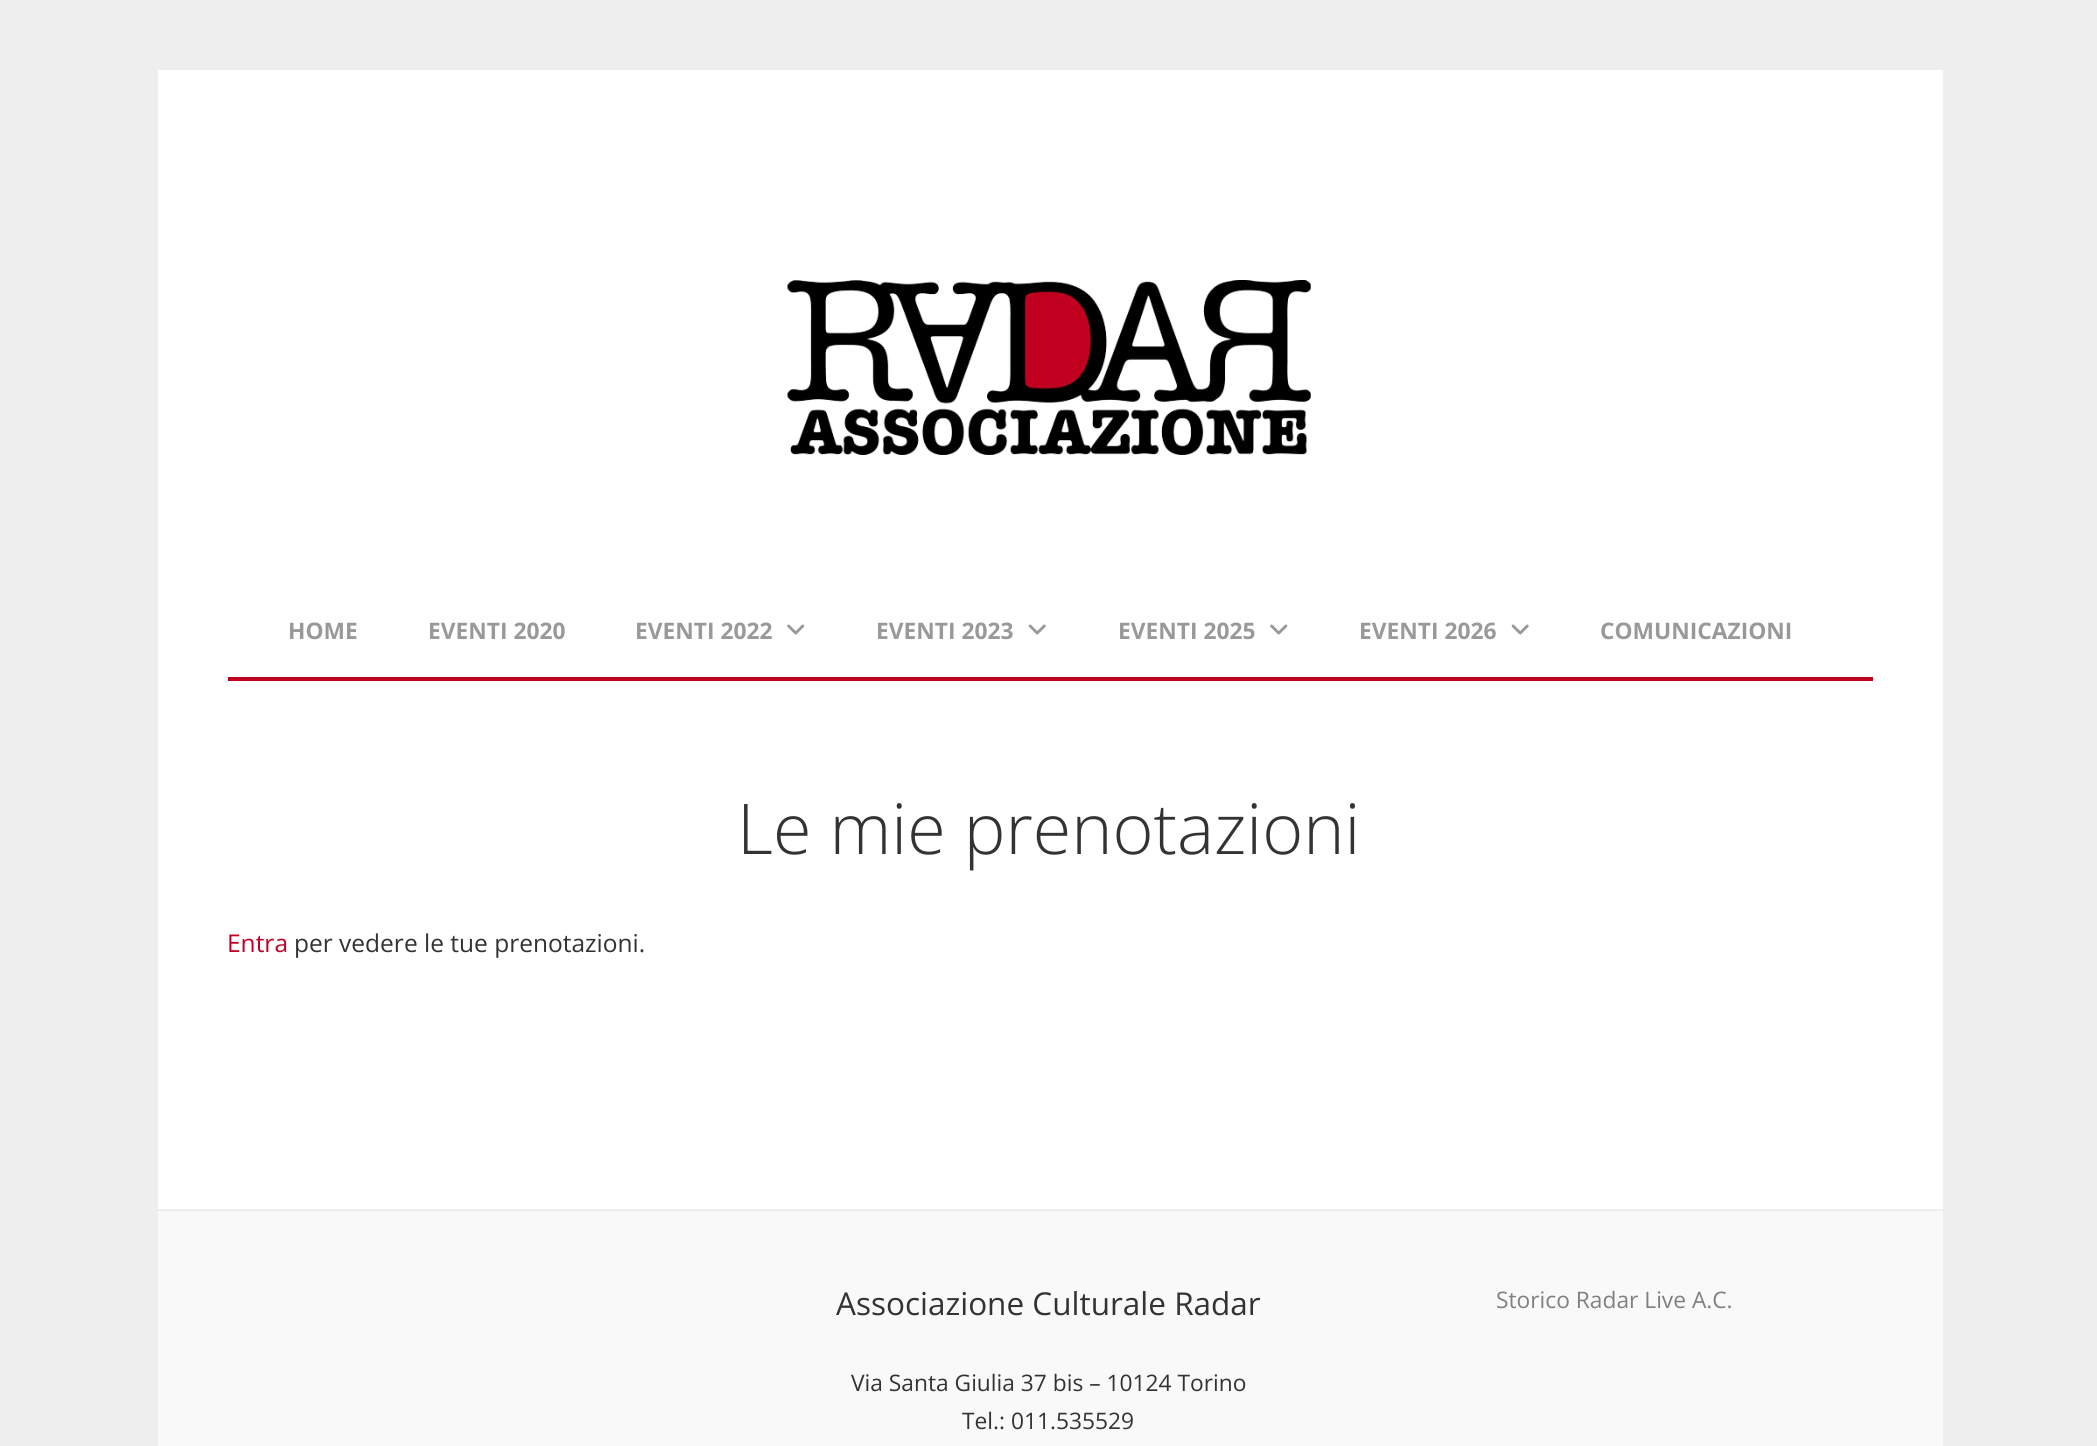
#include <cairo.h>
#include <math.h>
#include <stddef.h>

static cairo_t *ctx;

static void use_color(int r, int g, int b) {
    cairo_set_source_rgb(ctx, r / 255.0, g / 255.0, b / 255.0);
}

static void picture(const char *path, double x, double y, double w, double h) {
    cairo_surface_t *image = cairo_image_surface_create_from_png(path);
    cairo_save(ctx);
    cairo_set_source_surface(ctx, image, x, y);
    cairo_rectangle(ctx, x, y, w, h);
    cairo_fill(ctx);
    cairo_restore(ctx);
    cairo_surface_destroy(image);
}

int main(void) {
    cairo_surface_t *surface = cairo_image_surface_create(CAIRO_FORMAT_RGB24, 2097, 1446);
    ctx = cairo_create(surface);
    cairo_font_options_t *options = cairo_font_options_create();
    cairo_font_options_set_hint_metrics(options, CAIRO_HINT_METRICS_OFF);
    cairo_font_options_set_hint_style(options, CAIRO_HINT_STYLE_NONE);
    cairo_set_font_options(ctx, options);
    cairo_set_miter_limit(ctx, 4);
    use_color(238, 238, 238);
    cairo_paint(ctx);
    use_color(255, 255, 255);
    cairo_rectangle(ctx, 158, 70, 1785, 1139);
    cairo_fill(ctx);
    picture("img1.png", 787, 280, 524, 175);
    use_color(193, 0, 31);
    cairo_rectangle(ctx, 228, 677, 1645, 4);
    cairo_fill(ctx);
    cairo_select_font_face(ctx, "Open Sans", CAIRO_FONT_SLANT_NORMAL, CAIRO_FONT_WEIGHT_BOLD);
    cairo_set_font_size(ctx, 22.75);
    use_color(153, 153, 153);
    cairo_move_to(ctx, 288, 639);
    cairo_show_text(ctx, "HOME");
    cairo_move_to(ctx, 428, 639);
    cairo_show_text(ctx, "EVENTI 2020");
    cairo_move_to(ctx, 635, 639);
    cairo_show_text(ctx, "EVENTI 2022");
    picture("img2.png", 787, 624, 18, 11);
    cairo_move_to(ctx, 876, 639);
    cairo_show_text(ctx, "EVENTI 2023");
    picture("img3.png", 1028, 624, 18, 11);
    cairo_move_to(ctx, 1118, 639);
    cairo_show_text(ctx, "EVENTI 2025");
    picture("img2.png", 1270, 624, 18, 11);
    cairo_move_to(ctx, 1359, 639);
    cairo_show_text(ctx, "EVENTI 2026");
    picture("img3.png", 1511, 624, 18, 11);
    cairo_move_to(ctx, 1600, 639);
    cairo_show_text(ctx, "COMUNICAZIONI");
    cairo_select_font_face(ctx, "Open Sans Light", CAIRO_FONT_SLANT_NORMAL, CAIRO_FONT_WEIGHT_NORMAL);
    cairo_set_font_size(ctx, 70);
    use_color(51, 51, 51);
    cairo_move_to(ctx, 737, 854);
    cairo_show_text(ctx, "Le mie prenotazioni");
    cairo_select_font_face(ctx, "Open Sans", CAIRO_FONT_SLANT_NORMAL, CAIRO_FONT_WEIGHT_NORMAL);
    cairo_set_font_size(ctx, 24.5);
    use_color(193, 0, 36);
    cairo_move_to(ctx, 227, 952);
    cairo_show_text(ctx, "Entra");
    use_color(51, 51, 51);
    cairo_move_to(ctx, 294, 952);
    cairo_show_text(ctx, "per vedere le tue prenotazioni.");
    use_color(249, 249, 249);
    cairo_rectangle(ctx, 158, 1211, 1785, 235);
    cairo_fill(ctx);
    cairo_set_font_size(ctx, 31.5);
    use_color(51, 51, 51);
    cairo_move_to(ctx, 836, 1315);
    cairo_show_text(ctx, "Associazione Culturale Radar");
    cairo_set_font_size(ctx, 22.75);
    cairo_move_to(ctx, 851, 1391);
    cairo_show_text(ctx, "Via Santa Giulia 37 bis – 10124 Torino");
    cairo_move_to(ctx, 962, 1429);
    cairo_show_text(ctx, "Tel.: 011.535529");
    use_color(128, 128, 128);
    cairo_move_to(ctx, 1496, 1308);
    cairo_show_text(ctx, "Storico Radar Live A.C.");
    cairo_surface_write_to_png(surface, "result.png");
    cairo_font_options_destroy(options);
    cairo_destroy(ctx);
    cairo_surface_destroy(surface);
    return 0;
}
